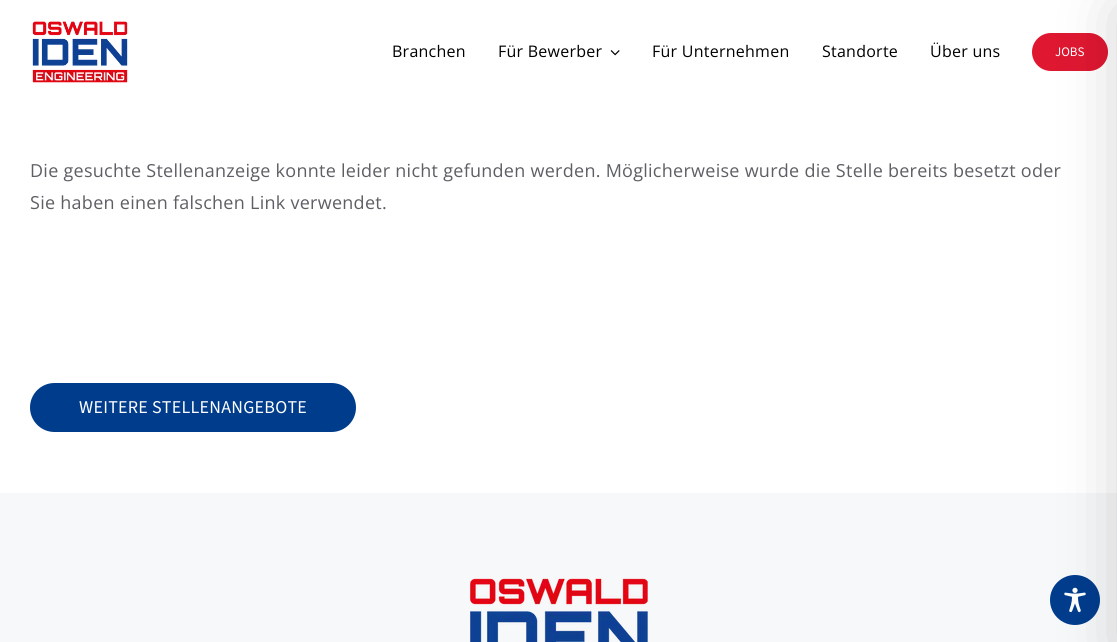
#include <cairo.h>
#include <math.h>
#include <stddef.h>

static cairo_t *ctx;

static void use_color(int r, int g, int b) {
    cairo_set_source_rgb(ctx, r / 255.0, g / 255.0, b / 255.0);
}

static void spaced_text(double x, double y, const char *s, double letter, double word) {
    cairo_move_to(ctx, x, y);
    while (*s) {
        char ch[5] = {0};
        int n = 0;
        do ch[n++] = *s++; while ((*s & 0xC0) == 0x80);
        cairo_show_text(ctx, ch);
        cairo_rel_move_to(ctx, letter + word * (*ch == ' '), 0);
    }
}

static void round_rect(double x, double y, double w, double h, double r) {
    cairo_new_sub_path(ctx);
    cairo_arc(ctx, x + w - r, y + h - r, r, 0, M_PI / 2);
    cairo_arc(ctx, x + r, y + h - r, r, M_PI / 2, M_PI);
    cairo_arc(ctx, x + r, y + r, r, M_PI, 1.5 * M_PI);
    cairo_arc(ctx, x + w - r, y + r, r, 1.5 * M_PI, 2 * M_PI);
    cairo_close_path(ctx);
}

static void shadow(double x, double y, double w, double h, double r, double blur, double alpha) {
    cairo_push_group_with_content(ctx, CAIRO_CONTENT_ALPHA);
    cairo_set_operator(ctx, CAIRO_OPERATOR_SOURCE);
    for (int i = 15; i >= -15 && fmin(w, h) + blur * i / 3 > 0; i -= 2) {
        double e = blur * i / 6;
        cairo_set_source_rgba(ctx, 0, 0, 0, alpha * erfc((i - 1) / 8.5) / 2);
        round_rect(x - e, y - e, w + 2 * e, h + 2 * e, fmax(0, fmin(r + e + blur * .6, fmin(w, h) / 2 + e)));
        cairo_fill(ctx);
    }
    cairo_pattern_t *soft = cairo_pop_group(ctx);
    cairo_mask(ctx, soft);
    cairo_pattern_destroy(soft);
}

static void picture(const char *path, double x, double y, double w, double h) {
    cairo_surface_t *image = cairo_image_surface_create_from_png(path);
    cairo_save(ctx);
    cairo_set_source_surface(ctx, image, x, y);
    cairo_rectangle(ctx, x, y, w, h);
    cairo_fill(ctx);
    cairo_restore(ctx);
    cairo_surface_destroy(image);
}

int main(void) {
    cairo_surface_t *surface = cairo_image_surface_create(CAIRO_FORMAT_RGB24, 1117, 642);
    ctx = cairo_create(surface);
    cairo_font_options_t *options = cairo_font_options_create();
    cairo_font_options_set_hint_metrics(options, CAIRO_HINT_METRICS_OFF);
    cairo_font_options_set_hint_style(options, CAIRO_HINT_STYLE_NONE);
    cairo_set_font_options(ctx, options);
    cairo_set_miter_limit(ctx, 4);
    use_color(255, 255, 255);
    cairo_paint(ctx);
    use_color(247, 248, 249);
    cairo_rectangle(ctx, 0, 493, 1117, 149);
    cairo_fill(ctx);
    use_color(0, 60, 140);
    cairo_arc(ctx, 1075, 600, 25, 0, 2 * M_PI);
    cairo_fill(ctx);
    picture("img1.png", 1064, 587, 22, 26);
    use_color(223, 23, 49);
    round_rect(1032, 33, 76, 38, 19);
    cairo_fill(ctx);
    use_color(0, 0, 0);
    shadow(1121, 10, 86, 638, 0, 30, 0.2);
    picture("img2.png", 32, 21, 96, 62);
    cairo_select_font_face(ctx, "Open Sans", CAIRO_FONT_SLANT_NORMAL, CAIRO_FONT_WEIGHT_NORMAL);
    cairo_set_font_size(ctx, 16);
    use_color(0, 0, 0);
    spaced_text(392, 57, "Branchen", 0.25, 0);
    spaced_text(498, 57, "Für Bewerber", 0.25, 0);
    picture("img3.png", 610, 50, 10, 6);
    spaced_text(652, 57, "Für Unternehmen", 0.25, 0);
    spaced_text(822, 57, "Standorte", 0.25, 0);
    spaced_text(930, 57, "Über uns", 0.25, 0);
    cairo_select_font_face(ctx, "Source Sans 3", CAIRO_FONT_SLANT_NORMAL, CAIRO_FONT_WEIGHT_NORMAL);
    cairo_set_font_size(ctx, 13);
    use_color(255, 255, 255);
    cairo_move_to(ctx, 1055, 56);
    cairo_show_text(ctx, "JOBS");
    cairo_select_font_face(ctx, "Open Sans", CAIRO_FONT_SLANT_NORMAL, CAIRO_FONT_WEIGHT_NORMAL);
    cairo_set_font_size(ctx, 18);
    use_color(93, 95, 100);
    spaced_text(30, 177, "Die gesuchte Stellenanzeige konnte leider nicht gefunden werden. Möglicherweise wurde die Stelle bereits besetzt oder", 0.27, 0);
    spaced_text(30, 209, "Sie haben einen falschen Link verwendet.", 0.27, 0);
    use_color(0, 60, 140);
    round_rect(30, 383, 326, 49, 24.5);
    cairo_fill(ctx);
    cairo_select_font_face(ctx, "Source Sans 3", CAIRO_FONT_SLANT_NORMAL, CAIRO_FONT_WEIGHT_NORMAL);
    use_color(255, 255, 255);
    spaced_text(79, 413, "WEITERE STELLENANGEBOTE", 0.27, 0);
    picture("img4.png", 470, 578, 178, 64);
    cairo_surface_write_to_png(surface, "result.png");
    cairo_font_options_destroy(options);
    cairo_destroy(ctx);
    cairo_surface_destroy(surface);
    return 0;
}
